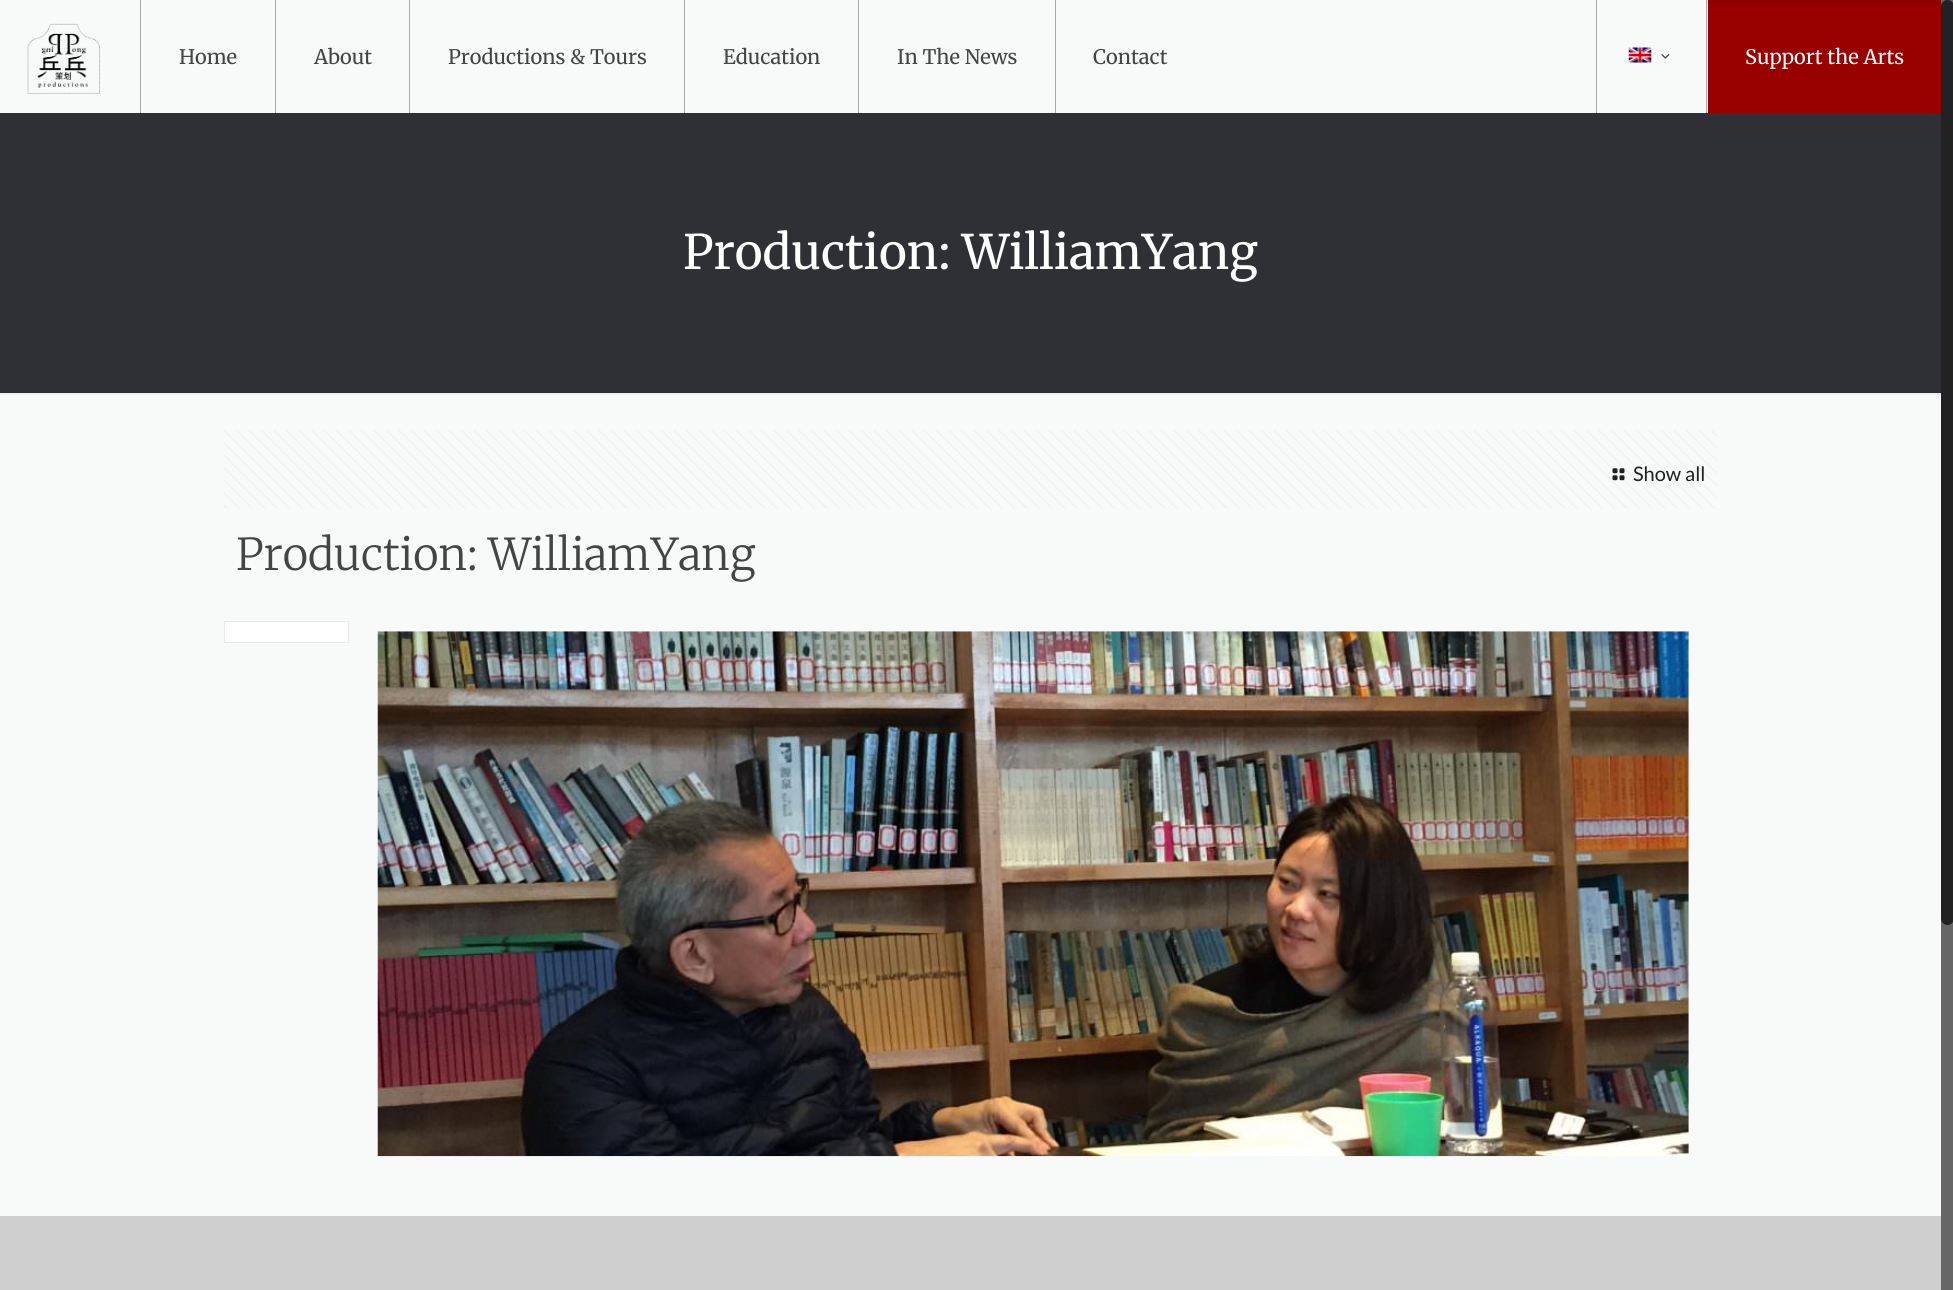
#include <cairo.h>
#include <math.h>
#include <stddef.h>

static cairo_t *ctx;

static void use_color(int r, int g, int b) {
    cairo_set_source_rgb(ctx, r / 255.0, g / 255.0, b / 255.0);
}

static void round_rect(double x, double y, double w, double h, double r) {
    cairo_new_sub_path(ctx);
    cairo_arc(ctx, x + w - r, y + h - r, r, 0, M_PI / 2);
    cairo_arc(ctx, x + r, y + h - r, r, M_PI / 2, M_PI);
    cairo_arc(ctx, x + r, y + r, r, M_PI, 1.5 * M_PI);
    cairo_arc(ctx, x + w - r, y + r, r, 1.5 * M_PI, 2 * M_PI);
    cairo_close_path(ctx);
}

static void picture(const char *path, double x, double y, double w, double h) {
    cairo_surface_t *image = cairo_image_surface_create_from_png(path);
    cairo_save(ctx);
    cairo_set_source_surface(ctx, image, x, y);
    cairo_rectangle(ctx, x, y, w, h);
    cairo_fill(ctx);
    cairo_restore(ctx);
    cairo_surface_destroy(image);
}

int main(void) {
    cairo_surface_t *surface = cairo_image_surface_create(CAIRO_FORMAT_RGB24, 1953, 1290);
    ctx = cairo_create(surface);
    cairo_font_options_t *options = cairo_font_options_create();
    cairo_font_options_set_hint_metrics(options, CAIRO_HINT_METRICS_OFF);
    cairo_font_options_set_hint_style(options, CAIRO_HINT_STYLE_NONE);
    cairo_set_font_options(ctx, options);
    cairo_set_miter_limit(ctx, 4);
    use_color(248, 249, 249);
    cairo_paint(ctx);
    use_color(46, 48, 53);
    cairo_rectangle(ctx, 0, 113, 1941, 280);
    cairo_fill(ctx);
    use_color(236, 237, 237);
    cairo_rectangle(ctx, 1706, 0, 2, 4);
    cairo_fill(ctx);
    picture("img1.png", 27, 23, 73, 71);
    use_color(171, 169, 165);
    cairo_rectangle(ctx, 275, 0, 1, 113);
    cairo_fill(ctx);
    cairo_rectangle(ctx, 140, 0, 1, 113);
    cairo_fill(ctx);
    cairo_select_font_face(ctx, "Merriweather", CAIRO_FONT_SLANT_NORMAL, CAIRO_FONT_WEIGHT_NORMAL);
    cairo_set_font_size(ctx, 20);
    use_color(68, 68, 68);
    cairo_move_to(ctx, 179, 64);
    cairo_show_text(ctx, "Home");
    use_color(171, 169, 165);
    cairo_rectangle(ctx, 409, 0, 1, 113);
    cairo_fill(ctx);
    use_color(68, 68, 68);
    cairo_move_to(ctx, 314, 64);
    cairo_show_text(ctx, "About");
    use_color(171, 169, 165);
    cairo_rectangle(ctx, 684, 0, 1, 113);
    cairo_fill(ctx);
    use_color(68, 68, 68);
    cairo_move_to(ctx, 448, 64);
    cairo_show_text(ctx, "Productions & Tours");
    use_color(171, 169, 165);
    cairo_rectangle(ctx, 858, 0, 1, 113);
    cairo_fill(ctx);
    use_color(68, 68, 68);
    cairo_move_to(ctx, 723, 64);
    cairo_show_text(ctx, "Education");
    use_color(171, 169, 165);
    cairo_rectangle(ctx, 1055, 0, 1, 113);
    cairo_fill(ctx);
    use_color(68, 68, 68);
    cairo_move_to(ctx, 897, 64);
    cairo_show_text(ctx, "In The News");
    cairo_move_to(ctx, 1093, 64);
    cairo_show_text(ctx, "Contact");
    use_color(171, 169, 165);
    cairo_rectangle(ctx, 1596, 0, 1, 113);
    cairo_fill(ctx);
    picture("img2.png", 1628, 47, 24, 16);
    picture("img3.png", 1661, 54, 9, 5);
    use_color(153, 0, 0);
    cairo_rectangle(ctx, 1708, 4, 233, 109);
    cairo_fill(ctx);
    use_color(145, 0, 0);
    cairo_rectangle(ctx, 1708, 0, 233, 4);
    cairo_fill(ctx);
    cairo_rectangle(ctx, 1708.5, 0.5, 232, 112);
    cairo_set_source_rgba(ctx, 0, 0, 0, 0.03);
    cairo_set_line_width(ctx, 1);
    cairo_stroke(ctx);
    use_color(171, 169, 165);
    cairo_rectangle(ctx, 1706, 0, 1, 113);
    cairo_fill(ctx);
    use_color(255, 255, 255);
    cairo_move_to(ctx, 1745, 64);
    cairo_show_text(ctx, "Support the Arts");
    cairo_set_font_size(ctx, 47.5);
    cairo_move_to(ctx, 683, 269);
    cairo_show_text(ctx, "Production: WilliamYang");
    picture("img4.png", 0, 393, 1941, 2);
    picture("img5.png", 224, 430, 1493, 79);
    picture("img6.png", 1612, 468, 13, 13);
    cairo_select_font_face(ctx, "Lato", CAIRO_FONT_SLANT_NORMAL, CAIRO_FONT_WEIGHT_NORMAL);
    cairo_set_font_size(ctx, 20);
    use_color(31, 31, 31);
    cairo_move_to(ctx, 1633, 481);
    cairo_show_text(ctx, "Show all");
    cairo_select_font_face(ctx, "Merriweather Light", CAIRO_FONT_SLANT_NORMAL, CAIRO_FONT_WEIGHT_NORMAL);
    cairo_set_font_size(ctx, 43.75);
    use_color(68, 68, 68);
    cairo_move_to(ctx, 236, 570);
    cairo_show_text(ctx, "Production: WilliamYang");
    use_color(255, 255, 255);
    cairo_rectangle(ctx, 224.5, 621.5, 124, 21);
    cairo_fill_preserve(ctx);
    use_color(235, 235, 235);
    cairo_stroke(ctx);
    picture("img7.png", 377, 631, 1312, 526);
    use_color(207, 207, 207);
    cairo_rectangle(ctx, 0, 1216, 1941, 74);
    cairo_fill(ctx);
    use_color(102, 102, 102);
    cairo_rectangle(ctx, 1941, 0, 12, 1290);
    cairo_fill(ctx);
    use_color(34, 34, 34);
    round_rect(1941, 0, 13, 925, 6.5);
    cairo_fill(ctx);
    cairo_surface_write_to_png(surface, "result.png");
    cairo_font_options_destroy(options);
    cairo_destroy(ctx);
    cairo_surface_destroy(surface);
    return 0;
}
